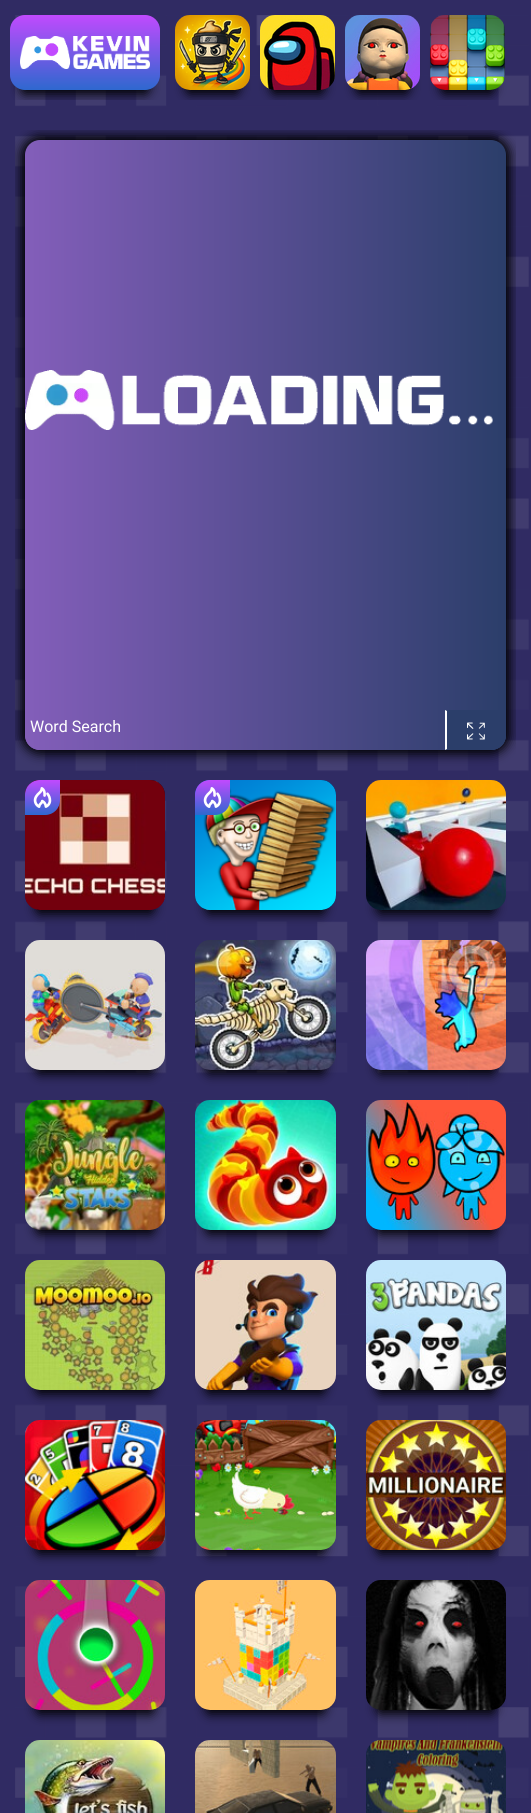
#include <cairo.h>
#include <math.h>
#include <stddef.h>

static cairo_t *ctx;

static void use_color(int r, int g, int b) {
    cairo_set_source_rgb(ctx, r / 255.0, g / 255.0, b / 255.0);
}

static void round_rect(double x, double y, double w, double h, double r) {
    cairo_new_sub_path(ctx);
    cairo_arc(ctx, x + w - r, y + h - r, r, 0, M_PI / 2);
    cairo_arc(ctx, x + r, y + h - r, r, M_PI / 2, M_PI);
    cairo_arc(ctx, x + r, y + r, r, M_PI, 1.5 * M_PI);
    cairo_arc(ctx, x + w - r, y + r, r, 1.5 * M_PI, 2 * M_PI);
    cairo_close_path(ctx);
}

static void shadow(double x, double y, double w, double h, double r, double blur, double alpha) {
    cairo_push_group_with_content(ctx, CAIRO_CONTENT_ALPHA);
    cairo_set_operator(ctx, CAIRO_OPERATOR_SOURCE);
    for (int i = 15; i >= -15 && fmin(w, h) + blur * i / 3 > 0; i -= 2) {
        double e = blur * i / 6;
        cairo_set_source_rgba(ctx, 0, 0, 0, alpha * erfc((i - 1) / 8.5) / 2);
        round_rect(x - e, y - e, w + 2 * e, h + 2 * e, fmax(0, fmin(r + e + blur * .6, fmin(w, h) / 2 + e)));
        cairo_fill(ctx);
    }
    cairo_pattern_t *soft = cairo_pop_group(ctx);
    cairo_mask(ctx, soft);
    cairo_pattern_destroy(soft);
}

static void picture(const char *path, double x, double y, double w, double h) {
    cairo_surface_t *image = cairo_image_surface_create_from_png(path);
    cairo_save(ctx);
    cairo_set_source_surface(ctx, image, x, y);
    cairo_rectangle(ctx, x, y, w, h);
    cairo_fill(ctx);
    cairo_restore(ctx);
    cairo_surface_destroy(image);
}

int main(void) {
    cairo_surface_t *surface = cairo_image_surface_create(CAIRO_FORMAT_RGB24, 531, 1813);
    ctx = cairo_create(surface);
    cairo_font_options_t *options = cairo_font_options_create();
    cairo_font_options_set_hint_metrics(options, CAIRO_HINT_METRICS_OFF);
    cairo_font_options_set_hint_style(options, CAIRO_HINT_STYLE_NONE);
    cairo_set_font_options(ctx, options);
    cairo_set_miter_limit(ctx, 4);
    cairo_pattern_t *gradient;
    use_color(48, 43, 99);
    cairo_paint(ctx);
    picture("img1.png", 15, 15, 514, 1783);
    cairo_save(ctx);
    cairo_rectangle(ctx, 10, 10, 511, 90);
    cairo_clip(ctx);
    use_color(0, 0, 0);
    shadow(21, 41, 128, 53, 4, 5.5, 1);
    cairo_restore(ctx);
    gradient = cairo_pattern_create_linear(85, 90, 85, 15);
    cairo_pattern_add_color_stop_rgba(gradient, 0, 0.18, 0.408, 0.812, 1);
    cairo_pattern_add_color_stop_rgba(gradient, 1, 0.757, 0.29, 0.996, 1);
    cairo_set_source(ctx, gradient);
    cairo_pattern_destroy(gradient);
    round_rect(10, 15, 150, 75, 15);
    cairo_fill(ctx);
    picture("img2.png", 20, 36, 130, 33);
    cairo_save(ctx);
    cairo_rectangle(ctx, 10, 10, 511, 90);
    cairo_clip(ctx);
    use_color(0, 0, 0);
    shadow(186, 41, 53, 53, 4, 5.5, 1);
    cairo_restore(ctx);
    picture("img3.png", 175, 15, 75, 75);
    cairo_save(ctx);
    cairo_rectangle(ctx, 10, 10, 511, 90);
    cairo_clip(ctx);
    use_color(0, 0, 0);
    shadow(271, 41, 53, 53, 4, 5.5, 1);
    cairo_restore(ctx);
    picture("img4.png", 260, 15, 75, 75);
    cairo_save(ctx);
    cairo_rectangle(ctx, 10, 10, 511, 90);
    cairo_clip(ctx);
    use_color(0, 0, 0);
    shadow(356, 41, 53, 53, 4, 5.5, 1);
    cairo_restore(ctx);
    picture("img5.png", 345, 15, 75, 75);
    cairo_save(ctx);
    cairo_rectangle(ctx, 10, 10, 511, 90);
    cairo_clip(ctx);
    use_color(0, 0, 0);
    shadow(441, 41, 53, 53, 4, 5.5, 1);
    cairo_restore(ctx);
    picture("img6.png", 430, 15, 75, 75);
    cairo_save(ctx);
    cairo_rectangle(ctx, 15, 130, 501, 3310);
    cairo_clip(ctx);
    use_color(0, 0, 0);
    shadow(21, 136, 489, 618, 19, 5.5, 1);
    cairo_restore(ctx);
    gradient = cairo_pattern_create_linear(25, 465, 506, 465);
    cairo_pattern_add_color_stop_rgba(gradient, 0, 0.514, 0.369, 0.729, 1);
    cairo_pattern_add_color_stop_rgba(gradient, 1, 0.169, 0.243, 0.416, 1);
    cairo_set_source(ctx, gradient);
    cairo_pattern_destroy(gradient);
    round_rect(25, 140, 481, 610, 15);
    cairo_fill(ctx);
    picture("img7.png", 25, 370, 468, 60);
    gradient = cairo_pattern_create_linear(25, 730, 506, 730);
    cairo_pattern_add_color_stop_rgba(gradient, 0, 0.514, 0.369, 0.729, 1);
    cairo_pattern_add_color_stop_rgba(gradient, 1, 0.169, 0.243, 0.416, 1);
    cairo_set_source(ctx, gradient);
    cairo_pattern_destroy(gradient);
    cairo_new_path(ctx);
    cairo_move_to(ctx, 25, 710);
    cairo_line_to(ctx, 506, 710);
    cairo_line_to(ctx, 506, 735);
    cairo_curve_to(ctx, 506, 743.5, 499.5, 750, 491, 750);
    cairo_line_to(ctx, 40, 750);
    cairo_curve_to(ctx, 31.5, 750, 25, 743.5, 25, 735);
    cairo_close_path(ctx);
    cairo_fill(ctx);
    cairo_select_font_face(ctx, "Roboto", CAIRO_FONT_SLANT_NORMAL, CAIRO_FONT_WEIGHT_NORMAL);
    cairo_set_font_size(ctx, 16);
    use_color(255, 255, 255);
    cairo_move_to(ctx, 30, 732);
    cairo_show_text(ctx, "Word Search");
    use_color(43, 62, 106);
    cairo_new_path(ctx);
    cairo_move_to(ctx, 445, 710);
    cairo_line_to(ctx, 506, 710);
    cairo_line_to(ctx, 506, 735);
    cairo_curve_to(ctx, 506, 743.5, 499.5, 750, 491, 750);
    cairo_line_to(ctx, 445, 750);
    cairo_close_path(ctx);
    cairo_fill(ctx);
    use_color(255, 255, 255);
    cairo_new_path(ctx);
    cairo_move_to(ctx, 445, 750);
    cairo_line_to(ctx, 445, 710);
    cairo_line_to(ctx, 447, 711);
    cairo_line_to(ctx, 447, 749);
    cairo_close_path(ctx);
    cairo_fill(ctx);
    picture("img8.png", 467, 722, 18, 18);
    use_color(0, 0, 0);
    shadow(36, 806, 118, 108, 4, 5.5, 1);
    picture("img9.png", 25, 780, 140, 130);
    picture("img10.png", 25, 780, 140, 130);
    gradient = cairo_pattern_create_linear(43, 815, 43, 780);
    cairo_pattern_add_color_stop_rgba(gradient, 0, 0.18, 0.408, 0.812, 1);
    cairo_pattern_add_color_stop_rgba(gradient, 1, 0.757, 0.29, 0.996, 1);
    cairo_set_source(ctx, gradient);
    cairo_pattern_destroy(gradient);
    cairo_new_path(ctx);
    cairo_move_to(ctx, 40, 780);
    cairo_line_to(ctx, 60, 780);
    cairo_line_to(ctx, 60, 800);
    cairo_curve_to(ctx, 60, 808.5, 53.5, 815, 45, 815);
    cairo_line_to(ctx, 25, 815);
    cairo_line_to(ctx, 25, 795);
    cairo_curve_to(ctx, 25, 786.5, 31.5, 780, 40, 780);
    cairo_close_path(ctx);
    cairo_fill(ctx);
    picture("img11.png", 33, 787, 19, 21);
    use_color(0, 0, 0);
    shadow(206, 806, 119, 108, 4, 5.5, 1);
    picture("img12.png", 195, 780, 141, 130);
    picture("img13.png", 195, 780, 141, 130);
    gradient = cairo_pattern_create_linear(213, 815, 213, 780);
    cairo_pattern_add_color_stop_rgba(gradient, 0, 0.18, 0.408, 0.812, 1);
    cairo_pattern_add_color_stop_rgba(gradient, 1, 0.757, 0.29, 0.996, 1);
    cairo_set_source(ctx, gradient);
    cairo_pattern_destroy(gradient);
    cairo_new_path(ctx);
    cairo_move_to(ctx, 210, 780);
    cairo_line_to(ctx, 230, 780);
    cairo_line_to(ctx, 230, 800);
    cairo_curve_to(ctx, 230, 808.5, 223.5, 815, 215, 815);
    cairo_line_to(ctx, 195, 815);
    cairo_line_to(ctx, 195, 795);
    cairo_curve_to(ctx, 195, 786.5, 201.5, 780, 210, 780);
    cairo_close_path(ctx);
    cairo_fill(ctx);
    picture("img11.png", 203, 787, 19, 21);
    use_color(0, 0, 0);
    shadow(377, 806, 118, 108, 4, 5.5, 1);
    picture("img14.png", 366, 780, 140, 130);
    shadow(36, 966, 118, 108, 4, 5.5, 1);
    picture("img15.png", 25, 940, 140, 130);
    shadow(206, 966, 119, 108, 4, 5.5, 1);
    picture("img16.png", 195, 940, 141, 130);
    shadow(377, 966, 118, 108, 4, 5.5, 1);
    picture("img17.png", 366, 940, 140, 130);
    shadow(36, 1126, 118, 108, 4, 5.5, 1);
    picture("img18.png", 25, 1100, 140, 130);
    shadow(206, 1126, 119, 108, 4, 5.5, 1);
    picture("img19.png", 195, 1100, 141, 130);
    shadow(377, 1126, 118, 108, 4, 5.5, 1);
    picture("img20.png", 366, 1100, 140, 130);
    shadow(36, 1286, 118, 108, 4, 5.5, 1);
    picture("img21.png", 25, 1260, 140, 130);
    shadow(206, 1286, 119, 108, 4, 5.5, 1);
    picture("img22.png", 195, 1260, 141, 130);
    shadow(377, 1286, 118, 108, 4, 5.5, 1);
    picture("img23.png", 366, 1260, 140, 130);
    shadow(36, 1446, 118, 108, 4, 5.5, 1);
    picture("img24.png", 25, 1420, 140, 130);
    shadow(206, 1446, 119, 108, 4, 5.5, 1);
    picture("img25.png", 195, 1420, 141, 130);
    shadow(377, 1446, 118, 108, 4, 5.5, 1);
    picture("img26.png", 366, 1420, 140, 130);
    shadow(36, 1606, 118, 108, 4, 5.5, 1);
    picture("img27.png", 25, 1580, 140, 130);
    shadow(206, 1606, 119, 108, 4, 5.5, 1);
    picture("img28.png", 195, 1580, 141, 130);
    shadow(377, 1606, 118, 108, 4, 5.5, 1);
    picture("img29.png", 366, 1580, 140, 130);
    picture("img30.png", 25, 1740, 140, 73);
    picture("img31.png", 195, 1740, 141, 73);
    picture("img32.png", 366, 1740, 140, 73);
    cairo_surface_write_to_png(surface, "result.png");
    cairo_font_options_destroy(options);
    cairo_destroy(ctx);
    cairo_surface_destroy(surface);
    return 0;
}
